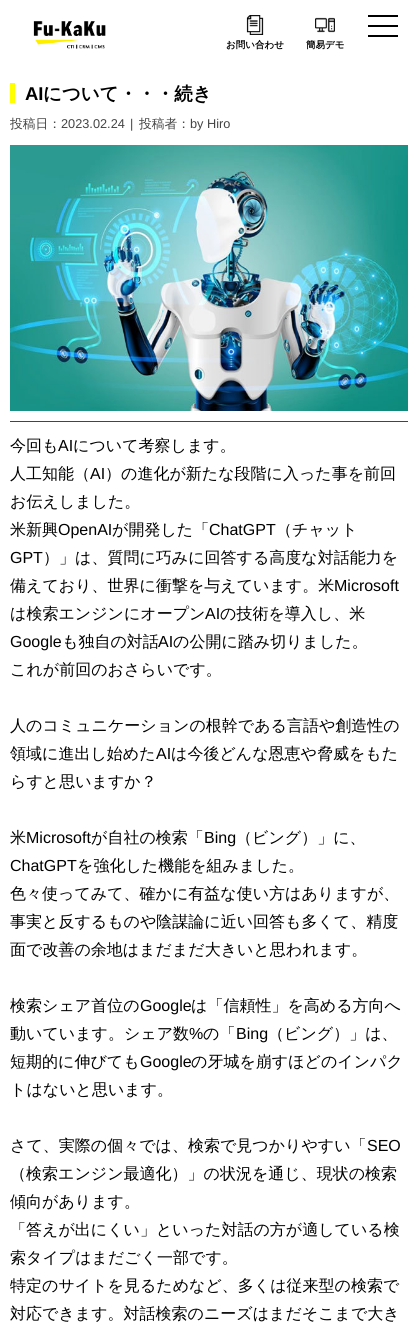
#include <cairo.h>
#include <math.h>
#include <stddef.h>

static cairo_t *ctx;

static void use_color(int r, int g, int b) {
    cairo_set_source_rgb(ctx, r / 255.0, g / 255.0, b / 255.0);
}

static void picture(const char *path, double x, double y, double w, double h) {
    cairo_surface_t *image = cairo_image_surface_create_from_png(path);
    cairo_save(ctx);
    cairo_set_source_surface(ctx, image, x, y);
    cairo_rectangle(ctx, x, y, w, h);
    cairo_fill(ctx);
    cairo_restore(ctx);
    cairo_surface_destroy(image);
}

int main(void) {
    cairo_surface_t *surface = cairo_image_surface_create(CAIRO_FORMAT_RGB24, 418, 1333);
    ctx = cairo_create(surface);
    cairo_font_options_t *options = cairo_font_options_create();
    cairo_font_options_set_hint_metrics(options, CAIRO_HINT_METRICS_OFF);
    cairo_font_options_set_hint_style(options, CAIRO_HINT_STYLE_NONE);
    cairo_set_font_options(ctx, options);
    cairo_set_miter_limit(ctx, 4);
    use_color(255, 255, 255);
    cairo_paint(ctx);
    use_color(0, 0, 0);
    cairo_rectangle(ctx, 368, 25, 30, 2);
    cairo_fill(ctx);
    cairo_rectangle(ctx, 368, 15, 30, 2);
    cairo_fill(ctx);
    cairo_rectangle(ctx, 368, 35, 30, 2);
    cairo_fill(ctx);
    picture("img1.png", 33, 21, 73, 28);
    picture("img2.png", 246, 15, 18, 20);
    cairo_select_font_face(ctx, "WenQuanYi Zen Hei", CAIRO_FONT_SLANT_NORMAL, CAIRO_FONT_WEIGHT_BOLD);
    cairo_set_font_size(ctx, 9.5);
    cairo_move_to(ctx, 226, 48);
    cairo_show_text(ctx, "お問い合わせ");
    picture("img3.png", 315, 17, 20, 16);
    cairo_move_to(ctx, 306, 48);
    cairo_show_text(ctx, "簡易デモ");
    use_color(68, 68, 68);
    cairo_rectangle(ctx, 10, 421, 398, 1);
    cairo_fill(ctx);
    use_color(255, 255, 0);
    cairo_rectangle(ctx, 10, 83, 5, 20);
    cairo_fill(ctx);
    cairo_select_font_face(ctx, "Liberation Sans", CAIRO_FONT_SLANT_NORMAL, CAIRO_FONT_WEIGHT_BOLD);
    cairo_set_font_size(ctx, 18.5);
    use_color(0, 0, 0);
    cairo_move_to(ctx, 25, 100);
    cairo_show_text(ctx, "AI");
    cairo_select_font_face(ctx, "WenQuanYi Zen Hei", CAIRO_FONT_SLANT_NORMAL, CAIRO_FONT_WEIGHT_BOLD);
    cairo_move_to(ctx, 43, 100);
    cairo_show_text(ctx, "について・・・続き");
    cairo_select_font_face(ctx, "WenQuanYi Zen Hei Medium", CAIRO_FONT_SLANT_NORMAL, CAIRO_FONT_WEIGHT_NORMAL);
    cairo_set_font_size(ctx, 12.75);
    use_color(68, 68, 68);
    cairo_move_to(ctx, 10, 128);
    cairo_show_text(ctx, "投稿日：");
    cairo_select_font_face(ctx, "Liberation Sans", CAIRO_FONT_SLANT_NORMAL, CAIRO_FONT_WEIGHT_NORMAL);
    cairo_move_to(ctx, 61, 128);
    cairo_show_text(ctx, "2023.02.24");
    cairo_move_to(ctx, 130, 128);
    cairo_show_text(ctx, "|");
    cairo_select_font_face(ctx, "WenQuanYi Zen Hei Medium", CAIRO_FONT_SLANT_NORMAL, CAIRO_FONT_WEIGHT_NORMAL);
    cairo_move_to(ctx, 139, 128);
    cairo_show_text(ctx, "投稿者：");
    cairo_select_font_face(ctx, "Liberation Sans", CAIRO_FONT_SLANT_NORMAL, CAIRO_FONT_WEIGHT_NORMAL);
    cairo_move_to(ctx, 190, 128);
    cairo_show_text(ctx, "by Hiro");
    picture("img4.png", 10, 145, 398, 266);
    cairo_select_font_face(ctx, "WenQuanYi Zen Hei Medium", CAIRO_FONT_SLANT_NORMAL, CAIRO_FONT_WEIGHT_NORMAL);
    cairo_set_font_size(ctx, 16);
    use_color(0, 0, 0);
    cairo_move_to(ctx, 10, 451);
    cairo_show_text(ctx, "今回も");
    cairo_select_font_face(ctx, "Liberation Sans", CAIRO_FONT_SLANT_NORMAL, CAIRO_FONT_WEIGHT_NORMAL);
    cairo_move_to(ctx, 58, 451);
    cairo_show_text(ctx, "AI");
    cairo_select_font_face(ctx, "WenQuanYi Zen Hei Medium", CAIRO_FONT_SLANT_NORMAL, CAIRO_FONT_WEIGHT_NORMAL);
    cairo_move_to(ctx, 73, 451);
    cairo_show_text(ctx, "について考察します。");
    cairo_move_to(ctx, 10, 479);
    cairo_show_text(ctx, "人工知能（");
    cairo_select_font_face(ctx, "Liberation Sans", CAIRO_FONT_SLANT_NORMAL, CAIRO_FONT_WEIGHT_NORMAL);
    cairo_move_to(ctx, 90, 479);
    cairo_show_text(ctx, "AI");
    cairo_select_font_face(ctx, "WenQuanYi Zen Hei Medium", CAIRO_FONT_SLANT_NORMAL, CAIRO_FONT_WEIGHT_NORMAL);
    cairo_move_to(ctx, 105, 479);
    cairo_show_text(ctx, "）の進化が新たな段階に入った事を前回");
    cairo_move_to(ctx, 10, 507);
    cairo_show_text(ctx, "お伝えしました。");
    cairo_move_to(ctx, 10, 535);
    cairo_show_text(ctx, "米新興");
    cairo_select_font_face(ctx, "Liberation Sans", CAIRO_FONT_SLANT_NORMAL, CAIRO_FONT_WEIGHT_NORMAL);
    cairo_move_to(ctx, 58, 535);
    cairo_show_text(ctx, "OpenAI");
    cairo_select_font_face(ctx, "WenQuanYi Zen Hei Medium", CAIRO_FONT_SLANT_NORMAL, CAIRO_FONT_WEIGHT_NORMAL);
    cairo_move_to(ctx, 112, 535);
    cairo_show_text(ctx, "が開発した「");
    cairo_select_font_face(ctx, "Liberation Sans", CAIRO_FONT_SLANT_NORMAL, CAIRO_FONT_WEIGHT_NORMAL);
    cairo_move_to(ctx, 209, 535);
    cairo_show_text(ctx, "ChatGPT");
    cairo_select_font_face(ctx, "WenQuanYi Zen Hei Medium", CAIRO_FONT_SLANT_NORMAL, CAIRO_FONT_WEIGHT_NORMAL);
    cairo_move_to(ctx, 276, 535);
    cairo_show_text(ctx, "（チャット");
    cairo_select_font_face(ctx, "Liberation Sans", CAIRO_FONT_SLANT_NORMAL, CAIRO_FONT_WEIGHT_NORMAL);
    cairo_move_to(ctx, 10, 563);
    cairo_show_text(ctx, "GPT");
    cairo_select_font_face(ctx, "WenQuanYi Zen Hei Medium", CAIRO_FONT_SLANT_NORMAL, CAIRO_FONT_WEIGHT_NORMAL);
    cairo_move_to(ctx, 43, 563);
    cairo_show_text(ctx, "）」は、質問に巧みに回答する高度な対話能力を");
    cairo_move_to(ctx, 10, 591);
    cairo_show_text(ctx, "備えており、世界に衝撃を与えています。米");
    cairo_select_font_face(ctx, "Liberation Sans", CAIRO_FONT_SLANT_NORMAL, CAIRO_FONT_WEIGHT_NORMAL);
    cairo_move_to(ctx, 334, 591);
    cairo_show_text(ctx, "Microsoft");
    cairo_select_font_face(ctx, "WenQuanYi Zen Hei Medium", CAIRO_FONT_SLANT_NORMAL, CAIRO_FONT_WEIGHT_NORMAL);
    cairo_move_to(ctx, 10, 619);
    cairo_show_text(ctx, "は検索エンジンにオープン");
    cairo_select_font_face(ctx, "Liberation Sans", CAIRO_FONT_SLANT_NORMAL, CAIRO_FONT_WEIGHT_NORMAL);
    cairo_move_to(ctx, 205, 619);
    cairo_show_text(ctx, "AI");
    cairo_select_font_face(ctx, "WenQuanYi Zen Hei Medium", CAIRO_FONT_SLANT_NORMAL, CAIRO_FONT_WEIGHT_NORMAL);
    cairo_move_to(ctx, 220, 619);
    cairo_show_text(ctx, "の技術を導入し、米");
    cairo_select_font_face(ctx, "Liberation Sans", CAIRO_FONT_SLANT_NORMAL, CAIRO_FONT_WEIGHT_NORMAL);
    cairo_move_to(ctx, 10, 647);
    cairo_show_text(ctx, "Google");
    cairo_select_font_face(ctx, "WenQuanYi Zen Hei Medium", CAIRO_FONT_SLANT_NORMAL, CAIRO_FONT_WEIGHT_NORMAL);
    cairo_move_to(ctx, 62, 647);
    cairo_show_text(ctx, "も独自の対話");
    cairo_select_font_face(ctx, "Liberation Sans", CAIRO_FONT_SLANT_NORMAL, CAIRO_FONT_WEIGHT_NORMAL);
    cairo_move_to(ctx, 158, 647);
    cairo_show_text(ctx, "AI");
    cairo_select_font_face(ctx, "WenQuanYi Zen Hei Medium", CAIRO_FONT_SLANT_NORMAL, CAIRO_FONT_WEIGHT_NORMAL);
    cairo_move_to(ctx, 173, 647);
    cairo_show_text(ctx, "の公開に踏み切りました。");
    cairo_move_to(ctx, 10, 675);
    cairo_show_text(ctx, "これが前回のおさらいです。");
    cairo_move_to(ctx, 10, 731);
    cairo_show_text(ctx, "人のコミュニケーションの根幹である言語や創造性の");
    cairo_move_to(ctx, 10, 759);
    cairo_show_text(ctx, "領域に進出し始めた");
    cairo_select_font_face(ctx, "Liberation Sans", CAIRO_FONT_SLANT_NORMAL, CAIRO_FONT_WEIGHT_NORMAL);
    cairo_move_to(ctx, 156, 759);
    cairo_show_text(ctx, "AI");
    cairo_select_font_face(ctx, "WenQuanYi Zen Hei Medium", CAIRO_FONT_SLANT_NORMAL, CAIRO_FONT_WEIGHT_NORMAL);
    cairo_move_to(ctx, 171, 759);
    cairo_show_text(ctx, "は今後どんな恩恵や脅威をもた");
    cairo_move_to(ctx, 10, 787);
    cairo_show_text(ctx, "らすと思いますか？");
    cairo_move_to(ctx, 10, 843);
    cairo_show_text(ctx, "米");
    cairo_select_font_face(ctx, "Liberation Sans", CAIRO_FONT_SLANT_NORMAL, CAIRO_FONT_WEIGHT_NORMAL);
    cairo_move_to(ctx, 26, 843);
    cairo_show_text(ctx, "Microsoft");
    cairo_select_font_face(ctx, "WenQuanYi Zen Hei Medium", CAIRO_FONT_SLANT_NORMAL, CAIRO_FONT_WEIGHT_NORMAL);
    cairo_move_to(ctx, 91, 843);
    cairo_show_text(ctx, "が自社の検索「");
    cairo_select_font_face(ctx, "Liberation Sans", CAIRO_FONT_SLANT_NORMAL, CAIRO_FONT_WEIGHT_NORMAL);
    cairo_move_to(ctx, 204, 843);
    cairo_show_text(ctx, "Bing");
    cairo_select_font_face(ctx, "WenQuanYi Zen Hei Medium", CAIRO_FONT_SLANT_NORMAL, CAIRO_FONT_WEIGHT_NORMAL);
    cairo_move_to(ctx, 236, 843);
    cairo_show_text(ctx, "（ビング）」に、");
    cairo_select_font_face(ctx, "Liberation Sans", CAIRO_FONT_SLANT_NORMAL, CAIRO_FONT_WEIGHT_NORMAL);
    cairo_move_to(ctx, 10, 871);
    cairo_show_text(ctx, "ChatGPT");
    cairo_select_font_face(ctx, "WenQuanYi Zen Hei Medium", CAIRO_FONT_SLANT_NORMAL, CAIRO_FONT_WEIGHT_NORMAL);
    cairo_move_to(ctx, 77, 871);
    cairo_show_text(ctx, "を強化した機能を組みました。");
    cairo_move_to(ctx, 10, 899);
    cairo_show_text(ctx, "色々使ってみて、確かに有益な使い方はありますが、");
    cairo_move_to(ctx, 10, 927);
    cairo_show_text(ctx, "事実と反するものや陰謀論に近い回答も多くて、精度");
    cairo_move_to(ctx, 10, 955);
    cairo_show_text(ctx, "面で改善の余地はまだまだ大きいと思われます。");
    cairo_move_to(ctx, 10, 1011);
    cairo_show_text(ctx, "検索シェア首位の");
    cairo_select_font_face(ctx, "Liberation Sans", CAIRO_FONT_SLANT_NORMAL, CAIRO_FONT_WEIGHT_NORMAL);
    cairo_move_to(ctx, 140, 1011);
    cairo_show_text(ctx, "Google");
    cairo_select_font_face(ctx, "WenQuanYi Zen Hei Medium", CAIRO_FONT_SLANT_NORMAL, CAIRO_FONT_WEIGHT_NORMAL);
    cairo_move_to(ctx, 191, 1011);
    cairo_show_text(ctx, "は「信頼性」を高める方向へ");
    cairo_move_to(ctx, 10, 1039);
    cairo_show_text(ctx, "動いています。シェア数");
    cairo_select_font_face(ctx, "Liberation Sans", CAIRO_FONT_SLANT_NORMAL, CAIRO_FONT_WEIGHT_NORMAL);
    cairo_move_to(ctx, 189, 1039);
    cairo_show_text(ctx, "%");
    cairo_select_font_face(ctx, "WenQuanYi Zen Hei Medium", CAIRO_FONT_SLANT_NORMAL, CAIRO_FONT_WEIGHT_NORMAL);
    cairo_move_to(ctx, 203, 1039);
    cairo_show_text(ctx, "の「");
    cairo_select_font_face(ctx, "Liberation Sans", CAIRO_FONT_SLANT_NORMAL, CAIRO_FONT_WEIGHT_NORMAL);
    cairo_move_to(ctx, 236, 1039);
    cairo_show_text(ctx, "Bing");
    cairo_select_font_face(ctx, "WenQuanYi Zen Hei Medium", CAIRO_FONT_SLANT_NORMAL, CAIRO_FONT_WEIGHT_NORMAL);
    cairo_move_to(ctx, 268, 1039);
    cairo_show_text(ctx, "（ビング）」は、");
    cairo_move_to(ctx, 10, 1067);
    cairo_show_text(ctx, "短期的に伸びても");
    cairo_select_font_face(ctx, "Liberation Sans", CAIRO_FONT_SLANT_NORMAL, CAIRO_FONT_WEIGHT_NORMAL);
    cairo_move_to(ctx, 140, 1067);
    cairo_show_text(ctx, "Google");
    cairo_select_font_face(ctx, "WenQuanYi Zen Hei Medium", CAIRO_FONT_SLANT_NORMAL, CAIRO_FONT_WEIGHT_NORMAL);
    cairo_move_to(ctx, 191, 1067);
    cairo_show_text(ctx, "の牙城を崩すほどのインパク");
    cairo_move_to(ctx, 10, 1095);
    cairo_show_text(ctx, "トはないと思います。");
    cairo_move_to(ctx, 10, 1151);
    cairo_show_text(ctx, "さて、実際の個々では、検索で見つかりやすい「");
    cairo_select_font_face(ctx, "Liberation Sans", CAIRO_FONT_SLANT_NORMAL, CAIRO_FONT_WEIGHT_NORMAL);
    cairo_move_to(ctx, 367, 1151);
    cairo_show_text(ctx, "SEO");
    cairo_select_font_face(ctx, "WenQuanYi Zen Hei Medium", CAIRO_FONT_SLANT_NORMAL, CAIRO_FONT_WEIGHT_NORMAL);
    cairo_move_to(ctx, 10, 1179);
    cairo_show_text(ctx, "（検索エンジン最適化）」の状況を通じ、現状の検索");
    cairo_move_to(ctx, 10, 1207);
    cairo_show_text(ctx, "傾向があります。");
    cairo_move_to(ctx, 10, 1235);
    cairo_show_text(ctx, "「答えが出にくい」といった対話の方が適している検");
    cairo_move_to(ctx, 10, 1263);
    cairo_show_text(ctx, "索タイプはまだごく一部です。");
    cairo_move_to(ctx, 10, 1291);
    cairo_show_text(ctx, "特定のサイトを見るためなど、多くは従来型の検索で");
    cairo_move_to(ctx, 10, 1319);
    cairo_show_text(ctx, "対応できます。対話検索のニーズはまだそこまで大き");
    cairo_surface_write_to_png(surface, "result.png");
    cairo_font_options_destroy(options);
    cairo_destroy(ctx);
    cairo_surface_destroy(surface);
    return 0;
}
